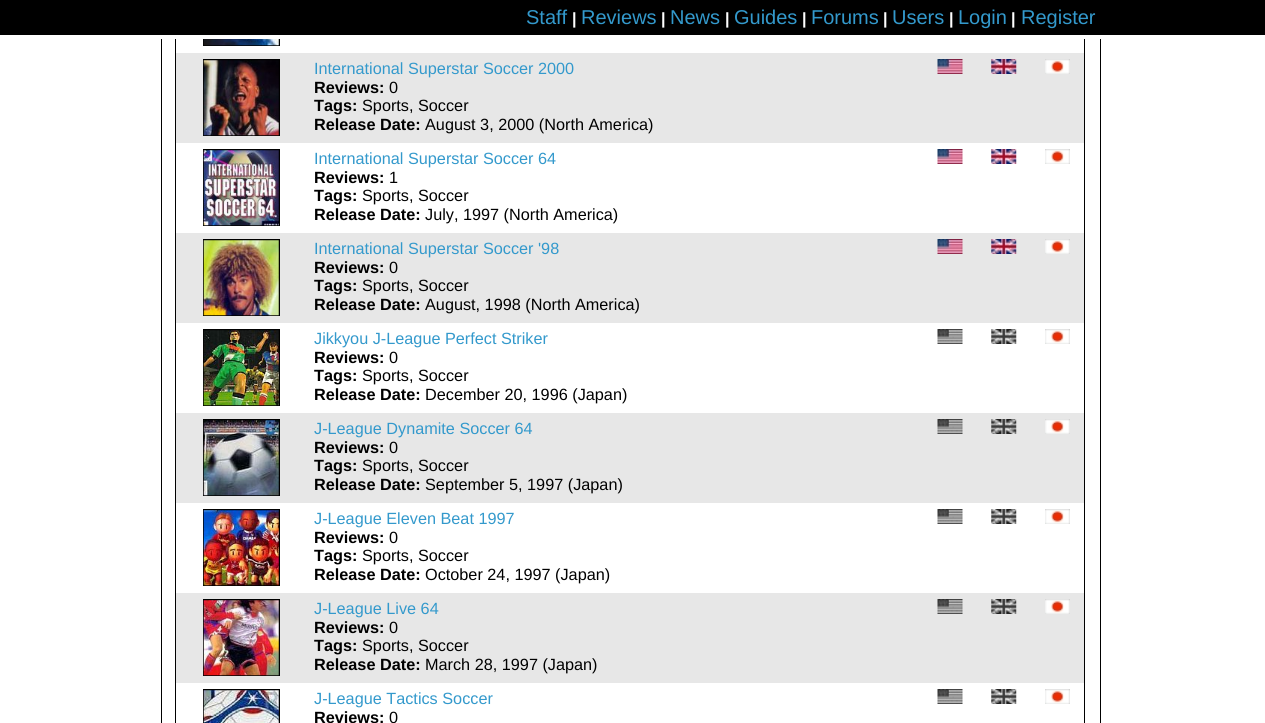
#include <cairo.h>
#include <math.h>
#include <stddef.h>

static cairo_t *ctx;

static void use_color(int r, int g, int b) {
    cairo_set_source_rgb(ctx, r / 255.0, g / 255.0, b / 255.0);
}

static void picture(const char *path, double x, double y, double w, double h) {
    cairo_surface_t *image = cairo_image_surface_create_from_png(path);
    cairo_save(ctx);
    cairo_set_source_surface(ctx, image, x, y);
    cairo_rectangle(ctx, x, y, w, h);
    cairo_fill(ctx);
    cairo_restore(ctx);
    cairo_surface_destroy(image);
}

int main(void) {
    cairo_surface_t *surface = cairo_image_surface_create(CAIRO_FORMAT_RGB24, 1265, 723);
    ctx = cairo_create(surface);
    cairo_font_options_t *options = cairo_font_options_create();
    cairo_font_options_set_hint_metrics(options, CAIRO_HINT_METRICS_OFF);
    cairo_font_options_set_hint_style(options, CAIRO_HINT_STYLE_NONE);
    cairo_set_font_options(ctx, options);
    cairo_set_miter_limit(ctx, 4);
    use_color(255, 255, 255);
    cairo_paint(ctx);
    use_color(0, 0, 0);
    cairo_rectangle(ctx, 0, 0, 1265, 35);
    cairo_fill(ctx);
    cairo_select_font_face(ctx, "Liberation Sans", CAIRO_FONT_SLANT_NORMAL, CAIRO_FONT_WEIGHT_NORMAL);
    cairo_set_font_size(ctx, 20);
    use_color(51, 153, 204);
    cairo_move_to(ctx, 526, 24);
    cairo_show_text(ctx, "Staff");
    cairo_select_font_face(ctx, "Liberation Sans", CAIRO_FONT_SLANT_NORMAL, CAIRO_FONT_WEIGHT_BOLD);
    cairo_set_font_size(ctx, 16.25);
    use_color(255, 255, 255);
    cairo_move_to(ctx, 572, 24);
    cairo_show_text(ctx, "|");
    cairo_select_font_face(ctx, "Liberation Sans", CAIRO_FONT_SLANT_NORMAL, CAIRO_FONT_WEIGHT_NORMAL);
    cairo_set_font_size(ctx, 20);
    use_color(51, 153, 204);
    cairo_move_to(ctx, 581, 24);
    cairo_show_text(ctx, "Reviews");
    cairo_select_font_face(ctx, "Liberation Sans", CAIRO_FONT_SLANT_NORMAL, CAIRO_FONT_WEIGHT_BOLD);
    cairo_set_font_size(ctx, 16.25);
    use_color(255, 255, 255);
    cairo_move_to(ctx, 661, 24);
    cairo_show_text(ctx, "|");
    cairo_select_font_face(ctx, "Liberation Sans", CAIRO_FONT_SLANT_NORMAL, CAIRO_FONT_WEIGHT_NORMAL);
    cairo_set_font_size(ctx, 20);
    use_color(51, 153, 204);
    cairo_move_to(ctx, 670, 24);
    cairo_show_text(ctx, "News");
    cairo_select_font_face(ctx, "Liberation Sans", CAIRO_FONT_SLANT_NORMAL, CAIRO_FONT_WEIGHT_BOLD);
    cairo_set_font_size(ctx, 16.25);
    use_color(255, 255, 255);
    cairo_move_to(ctx, 725, 24);
    cairo_show_text(ctx, "|");
    cairo_select_font_face(ctx, "Liberation Sans", CAIRO_FONT_SLANT_NORMAL, CAIRO_FONT_WEIGHT_NORMAL);
    cairo_set_font_size(ctx, 20);
    use_color(51, 153, 204);
    cairo_move_to(ctx, 734, 24);
    cairo_show_text(ctx, "Guides");
    cairo_select_font_face(ctx, "Liberation Sans", CAIRO_FONT_SLANT_NORMAL, CAIRO_FONT_WEIGHT_BOLD);
    cairo_set_font_size(ctx, 16.25);
    use_color(255, 255, 255);
    cairo_move_to(ctx, 802, 24);
    cairo_show_text(ctx, "|");
    cairo_select_font_face(ctx, "Liberation Sans", CAIRO_FONT_SLANT_NORMAL, CAIRO_FONT_WEIGHT_NORMAL);
    cairo_set_font_size(ctx, 20);
    use_color(51, 153, 204);
    cairo_move_to(ctx, 811, 24);
    cairo_show_text(ctx, "Forums");
    cairo_select_font_face(ctx, "Liberation Sans", CAIRO_FONT_SLANT_NORMAL, CAIRO_FONT_WEIGHT_BOLD);
    cairo_set_font_size(ctx, 16.25);
    use_color(255, 255, 255);
    cairo_move_to(ctx, 883, 24);
    cairo_show_text(ctx, "|");
    cairo_select_font_face(ctx, "Liberation Sans", CAIRO_FONT_SLANT_NORMAL, CAIRO_FONT_WEIGHT_NORMAL);
    cairo_set_font_size(ctx, 20);
    use_color(51, 153, 204);
    cairo_move_to(ctx, 892, 24);
    cairo_show_text(ctx, "Users");
    cairo_select_font_face(ctx, "Liberation Sans", CAIRO_FONT_SLANT_NORMAL, CAIRO_FONT_WEIGHT_BOLD);
    cairo_set_font_size(ctx, 16.25);
    use_color(255, 255, 255);
    cairo_move_to(ctx, 949, 24);
    cairo_show_text(ctx, "|");
    cairo_select_font_face(ctx, "Liberation Sans", CAIRO_FONT_SLANT_NORMAL, CAIRO_FONT_WEIGHT_NORMAL);
    cairo_set_font_size(ctx, 20);
    use_color(51, 153, 204);
    cairo_move_to(ctx, 958, 24);
    cairo_show_text(ctx, "Login");
    cairo_select_font_face(ctx, "Liberation Sans", CAIRO_FONT_SLANT_NORMAL, CAIRO_FONT_WEIGHT_BOLD);
    cairo_set_font_size(ctx, 16.25);
    use_color(255, 255, 255);
    cairo_move_to(ctx, 1011, 24);
    cairo_show_text(ctx, "|");
    cairo_select_font_face(ctx, "Liberation Sans", CAIRO_FONT_SLANT_NORMAL, CAIRO_FONT_WEIGHT_NORMAL);
    cairo_set_font_size(ctx, 20);
    use_color(51, 153, 204);
    cairo_move_to(ctx, 1021, 24);
    cairo_show_text(ctx, "Register");
    use_color(0, 0, 0);
    cairo_rectangle(ctx, 1100, 39, 1, 684);
    cairo_fill(ctx);
    cairo_rectangle(ctx, 161, 39, 1, 684);
    cairo_fill(ctx);
    cairo_rectangle(ctx, 1084, 39, 1, 684);
    cairo_fill(ctx);
    cairo_rectangle(ctx, 175, 39, 1, 684);
    cairo_fill(ctx);
    cairo_rectangle(ctx, 203, 39, 77, 7);
    cairo_fill(ctx);
    picture("img1.png", 203, 39, 76, 7);
    use_color(231, 231, 231);
    cairo_rectangle(ctx, 176, 53, 908, 90);
    cairo_fill(ctx);
    use_color(0, 0, 0);
    cairo_rectangle(ctx, 203, 59, 77, 77);
    cairo_fill(ctx);
    picture("img2.png", 203, 60, 76, 76);
    cairo_set_font_size(ctx, 16.25);
    use_color(51, 153, 204);
    cairo_move_to(ctx, 314, 74);
    cairo_show_text(ctx, "International Superstar Soccer 2000");
    cairo_select_font_face(ctx, "Liberation Sans", CAIRO_FONT_SLANT_NORMAL, CAIRO_FONT_WEIGHT_BOLD);
    use_color(0, 0, 0);
    cairo_move_to(ctx, 314, 93);
    cairo_show_text(ctx, "Reviews:");
    cairo_select_font_face(ctx, "Liberation Sans", CAIRO_FONT_SLANT_NORMAL, CAIRO_FONT_WEIGHT_NORMAL);
    cairo_move_to(ctx, 389, 93);
    cairo_show_text(ctx, "0");
    cairo_select_font_face(ctx, "Liberation Sans", CAIRO_FONT_SLANT_NORMAL, CAIRO_FONT_WEIGHT_BOLD);
    cairo_move_to(ctx, 314, 111);
    cairo_show_text(ctx, "Tags:");
    cairo_select_font_face(ctx, "Liberation Sans", CAIRO_FONT_SLANT_NORMAL, CAIRO_FONT_WEIGHT_NORMAL);
    cairo_move_to(ctx, 362, 111);
    cairo_show_text(ctx, "Sports, Soccer");
    cairo_select_font_face(ctx, "Liberation Sans", CAIRO_FONT_SLANT_NORMAL, CAIRO_FONT_WEIGHT_BOLD);
    cairo_move_to(ctx, 314, 130);
    cairo_show_text(ctx, "Release Date:");
    cairo_select_font_face(ctx, "Liberation Sans", CAIRO_FONT_SLANT_NORMAL, CAIRO_FONT_WEIGHT_NORMAL);
    cairo_move_to(ctx, 425, 130);
    cairo_show_text(ctx, "August 3, 2000 (North America)");
    picture("img3.png", 937, 59, 26, 15);
    picture("img4.png", 991, 59, 26, 15);
    picture("img5.png", 1045, 59, 25, 15);
    cairo_rectangle(ctx, 203, 149, 77, 77);
    cairo_fill(ctx);
    picture("img6.png", 203, 150, 76, 76);
    use_color(51, 153, 204);
    cairo_move_to(ctx, 314, 164);
    cairo_show_text(ctx, "International Superstar Soccer 64");
    cairo_select_font_face(ctx, "Liberation Sans", CAIRO_FONT_SLANT_NORMAL, CAIRO_FONT_WEIGHT_BOLD);
    use_color(0, 0, 0);
    cairo_move_to(ctx, 314, 183);
    cairo_show_text(ctx, "Reviews:");
    cairo_select_font_face(ctx, "Liberation Sans", CAIRO_FONT_SLANT_NORMAL, CAIRO_FONT_WEIGHT_NORMAL);
    cairo_move_to(ctx, 389, 183);
    cairo_show_text(ctx, "1");
    cairo_select_font_face(ctx, "Liberation Sans", CAIRO_FONT_SLANT_NORMAL, CAIRO_FONT_WEIGHT_BOLD);
    cairo_move_to(ctx, 314, 201);
    cairo_show_text(ctx, "Tags:");
    cairo_select_font_face(ctx, "Liberation Sans", CAIRO_FONT_SLANT_NORMAL, CAIRO_FONT_WEIGHT_NORMAL);
    cairo_move_to(ctx, 362, 201);
    cairo_show_text(ctx, "Sports, Soccer");
    cairo_select_font_face(ctx, "Liberation Sans", CAIRO_FONT_SLANT_NORMAL, CAIRO_FONT_WEIGHT_BOLD);
    cairo_move_to(ctx, 314, 220);
    cairo_show_text(ctx, "Release Date:");
    cairo_select_font_face(ctx, "Liberation Sans", CAIRO_FONT_SLANT_NORMAL, CAIRO_FONT_WEIGHT_NORMAL);
    cairo_move_to(ctx, 425, 220);
    cairo_show_text(ctx, "July, 1997 (North America)");
    picture("img7.png", 937, 149, 26, 15);
    picture("img8.png", 991, 149, 26, 15);
    picture("img5.png", 1045, 149, 25, 15);
    use_color(231, 231, 231);
    cairo_rectangle(ctx, 176, 233, 908, 90);
    cairo_fill(ctx);
    use_color(0, 0, 0);
    cairo_rectangle(ctx, 203, 239, 77, 77);
    cairo_fill(ctx);
    picture("img9.png", 203, 240, 76, 76);
    use_color(51, 153, 204);
    cairo_move_to(ctx, 314, 254);
    cairo_show_text(ctx, "International Superstar Soccer '98");
    cairo_select_font_face(ctx, "Liberation Sans", CAIRO_FONT_SLANT_NORMAL, CAIRO_FONT_WEIGHT_BOLD);
    use_color(0, 0, 0);
    cairo_move_to(ctx, 314, 273);
    cairo_show_text(ctx, "Reviews:");
    cairo_select_font_face(ctx, "Liberation Sans", CAIRO_FONT_SLANT_NORMAL, CAIRO_FONT_WEIGHT_NORMAL);
    cairo_move_to(ctx, 389, 273);
    cairo_show_text(ctx, "0");
    cairo_select_font_face(ctx, "Liberation Sans", CAIRO_FONT_SLANT_NORMAL, CAIRO_FONT_WEIGHT_BOLD);
    cairo_move_to(ctx, 314, 291);
    cairo_show_text(ctx, "Tags:");
    cairo_select_font_face(ctx, "Liberation Sans", CAIRO_FONT_SLANT_NORMAL, CAIRO_FONT_WEIGHT_NORMAL);
    cairo_move_to(ctx, 362, 291);
    cairo_show_text(ctx, "Sports, Soccer");
    cairo_select_font_face(ctx, "Liberation Sans", CAIRO_FONT_SLANT_NORMAL, CAIRO_FONT_WEIGHT_BOLD);
    cairo_move_to(ctx, 314, 310);
    cairo_show_text(ctx, "Release Date:");
    cairo_select_font_face(ctx, "Liberation Sans", CAIRO_FONT_SLANT_NORMAL, CAIRO_FONT_WEIGHT_NORMAL);
    cairo_move_to(ctx, 425, 310);
    cairo_show_text(ctx, "August, 1998 (North America)");
    picture("img3.png", 937, 239, 26, 15);
    picture("img4.png", 991, 239, 26, 15);
    picture("img5.png", 1045, 239, 25, 15);
    cairo_rectangle(ctx, 203, 329, 77, 77);
    cairo_fill(ctx);
    picture("img10.png", 203, 330, 76, 76);
    use_color(51, 153, 204);
    cairo_move_to(ctx, 314, 344);
    cairo_show_text(ctx, "Jikkyou J-League Perfect Striker");
    cairo_select_font_face(ctx, "Liberation Sans", CAIRO_FONT_SLANT_NORMAL, CAIRO_FONT_WEIGHT_BOLD);
    use_color(0, 0, 0);
    cairo_move_to(ctx, 314, 363);
    cairo_show_text(ctx, "Reviews:");
    cairo_select_font_face(ctx, "Liberation Sans", CAIRO_FONT_SLANT_NORMAL, CAIRO_FONT_WEIGHT_NORMAL);
    cairo_move_to(ctx, 389, 363);
    cairo_show_text(ctx, "0");
    cairo_select_font_face(ctx, "Liberation Sans", CAIRO_FONT_SLANT_NORMAL, CAIRO_FONT_WEIGHT_BOLD);
    cairo_move_to(ctx, 314, 381);
    cairo_show_text(ctx, "Tags:");
    cairo_select_font_face(ctx, "Liberation Sans", CAIRO_FONT_SLANT_NORMAL, CAIRO_FONT_WEIGHT_NORMAL);
    cairo_move_to(ctx, 362, 381);
    cairo_show_text(ctx, "Sports, Soccer");
    cairo_select_font_face(ctx, "Liberation Sans", CAIRO_FONT_SLANT_NORMAL, CAIRO_FONT_WEIGHT_BOLD);
    cairo_move_to(ctx, 314, 400);
    cairo_show_text(ctx, "Release Date:");
    cairo_select_font_face(ctx, "Liberation Sans", CAIRO_FONT_SLANT_NORMAL, CAIRO_FONT_WEIGHT_NORMAL);
    cairo_move_to(ctx, 425, 400);
    cairo_show_text(ctx, "December 20, 1996 (Japan)");
    picture("img11.png", 937, 329, 26, 15);
    picture("img12.png", 991, 329, 26, 15);
    picture("img13.png", 1045, 329, 25, 15);
    use_color(231, 231, 231);
    cairo_rectangle(ctx, 176, 413, 908, 90);
    cairo_fill(ctx);
    use_color(0, 0, 0);
    cairo_rectangle(ctx, 203, 419, 77, 77);
    cairo_fill(ctx);
    picture("img14.png", 203, 420, 76, 76);
    use_color(51, 153, 204);
    cairo_move_to(ctx, 314, 434);
    cairo_show_text(ctx, "J-League Dynamite Soccer 64");
    cairo_select_font_face(ctx, "Liberation Sans", CAIRO_FONT_SLANT_NORMAL, CAIRO_FONT_WEIGHT_BOLD);
    use_color(0, 0, 0);
    cairo_move_to(ctx, 314, 453);
    cairo_show_text(ctx, "Reviews:");
    cairo_select_font_face(ctx, "Liberation Sans", CAIRO_FONT_SLANT_NORMAL, CAIRO_FONT_WEIGHT_NORMAL);
    cairo_move_to(ctx, 389, 453);
    cairo_show_text(ctx, "0");
    cairo_select_font_face(ctx, "Liberation Sans", CAIRO_FONT_SLANT_NORMAL, CAIRO_FONT_WEIGHT_BOLD);
    cairo_move_to(ctx, 314, 471);
    cairo_show_text(ctx, "Tags:");
    cairo_select_font_face(ctx, "Liberation Sans", CAIRO_FONT_SLANT_NORMAL, CAIRO_FONT_WEIGHT_NORMAL);
    cairo_move_to(ctx, 362, 471);
    cairo_show_text(ctx, "Sports, Soccer");
    cairo_select_font_face(ctx, "Liberation Sans", CAIRO_FONT_SLANT_NORMAL, CAIRO_FONT_WEIGHT_BOLD);
    cairo_move_to(ctx, 314, 490);
    cairo_show_text(ctx, "Release Date:");
    cairo_select_font_face(ctx, "Liberation Sans", CAIRO_FONT_SLANT_NORMAL, CAIRO_FONT_WEIGHT_NORMAL);
    cairo_move_to(ctx, 425, 490);
    cairo_show_text(ctx, "September 5, 1997 (Japan)");
    picture("img15.png", 937, 419, 26, 15);
    picture("img16.png", 991, 419, 26, 15);
    picture("img5.png", 1045, 419, 25, 15);
    cairo_rectangle(ctx, 203, 509, 77, 77);
    cairo_fill(ctx);
    picture("img17.png", 203, 510, 76, 76);
    use_color(51, 153, 204);
    cairo_move_to(ctx, 314, 524);
    cairo_show_text(ctx, "J-League Eleven Beat 1997");
    cairo_select_font_face(ctx, "Liberation Sans", CAIRO_FONT_SLANT_NORMAL, CAIRO_FONT_WEIGHT_BOLD);
    use_color(0, 0, 0);
    cairo_move_to(ctx, 314, 543);
    cairo_show_text(ctx, "Reviews:");
    cairo_select_font_face(ctx, "Liberation Sans", CAIRO_FONT_SLANT_NORMAL, CAIRO_FONT_WEIGHT_NORMAL);
    cairo_move_to(ctx, 389, 543);
    cairo_show_text(ctx, "0");
    cairo_select_font_face(ctx, "Liberation Sans", CAIRO_FONT_SLANT_NORMAL, CAIRO_FONT_WEIGHT_BOLD);
    cairo_move_to(ctx, 314, 561);
    cairo_show_text(ctx, "Tags:");
    cairo_select_font_face(ctx, "Liberation Sans", CAIRO_FONT_SLANT_NORMAL, CAIRO_FONT_WEIGHT_NORMAL);
    cairo_move_to(ctx, 362, 561);
    cairo_show_text(ctx, "Sports, Soccer");
    cairo_select_font_face(ctx, "Liberation Sans", CAIRO_FONT_SLANT_NORMAL, CAIRO_FONT_WEIGHT_BOLD);
    cairo_move_to(ctx, 314, 580);
    cairo_show_text(ctx, "Release Date:");
    cairo_select_font_face(ctx, "Liberation Sans", CAIRO_FONT_SLANT_NORMAL, CAIRO_FONT_WEIGHT_NORMAL);
    cairo_move_to(ctx, 425, 580);
    cairo_show_text(ctx, "October 24, 1997 (Japan)");
    picture("img18.png", 937, 509, 26, 15);
    picture("img19.png", 991, 509, 26, 15);
    picture("img5.png", 1045, 509, 25, 15);
    use_color(231, 231, 231);
    cairo_rectangle(ctx, 176, 593, 908, 90);
    cairo_fill(ctx);
    use_color(0, 0, 0);
    cairo_rectangle(ctx, 203, 599, 77, 77);
    cairo_fill(ctx);
    picture("img20.png", 203, 600, 76, 76);
    use_color(51, 153, 204);
    cairo_move_to(ctx, 314, 614);
    cairo_show_text(ctx, "J-League Live 64");
    cairo_select_font_face(ctx, "Liberation Sans", CAIRO_FONT_SLANT_NORMAL, CAIRO_FONT_WEIGHT_BOLD);
    use_color(0, 0, 0);
    cairo_move_to(ctx, 314, 633);
    cairo_show_text(ctx, "Reviews:");
    cairo_select_font_face(ctx, "Liberation Sans", CAIRO_FONT_SLANT_NORMAL, CAIRO_FONT_WEIGHT_NORMAL);
    cairo_move_to(ctx, 389, 633);
    cairo_show_text(ctx, "0");
    cairo_select_font_face(ctx, "Liberation Sans", CAIRO_FONT_SLANT_NORMAL, CAIRO_FONT_WEIGHT_BOLD);
    cairo_move_to(ctx, 314, 651);
    cairo_show_text(ctx, "Tags:");
    cairo_select_font_face(ctx, "Liberation Sans", CAIRO_FONT_SLANT_NORMAL, CAIRO_FONT_WEIGHT_NORMAL);
    cairo_move_to(ctx, 362, 651);
    cairo_show_text(ctx, "Sports, Soccer");
    cairo_select_font_face(ctx, "Liberation Sans", CAIRO_FONT_SLANT_NORMAL, CAIRO_FONT_WEIGHT_BOLD);
    cairo_move_to(ctx, 314, 670);
    cairo_show_text(ctx, "Release Date:");
    cairo_select_font_face(ctx, "Liberation Sans", CAIRO_FONT_SLANT_NORMAL, CAIRO_FONT_WEIGHT_NORMAL);
    cairo_move_to(ctx, 425, 670);
    cairo_show_text(ctx, "March 28, 1997 (Japan)");
    picture("img15.png", 937, 599, 26, 15);
    picture("img16.png", 991, 599, 26, 15);
    picture("img5.png", 1045, 599, 25, 15);
    cairo_rectangle(ctx, 203, 689, 77, 34);
    cairo_fill(ctx);
    picture("img21.png", 203, 690, 76, 33);
    use_color(51, 153, 204);
    cairo_move_to(ctx, 314, 704);
    cairo_show_text(ctx, "J-League Tactics Soccer");
    cairo_select_font_face(ctx, "Liberation Sans", CAIRO_FONT_SLANT_NORMAL, CAIRO_FONT_WEIGHT_BOLD);
    use_color(0, 0, 0);
    cairo_move_to(ctx, 314, 723);
    cairo_show_text(ctx, "Reviews:");
    cairo_select_font_face(ctx, "Liberation Sans", CAIRO_FONT_SLANT_NORMAL, CAIRO_FONT_WEIGHT_NORMAL);
    cairo_move_to(ctx, 389, 723);
    cairo_show_text(ctx, "0");
    picture("img18.png", 937, 689, 26, 15);
    picture("img19.png", 991, 689, 26, 15);
    picture("img5.png", 1045, 689, 25, 15);
    cairo_surface_write_to_png(surface, "result.png");
    cairo_font_options_destroy(options);
    cairo_destroy(ctx);
    cairo_surface_destroy(surface);
    return 0;
}
